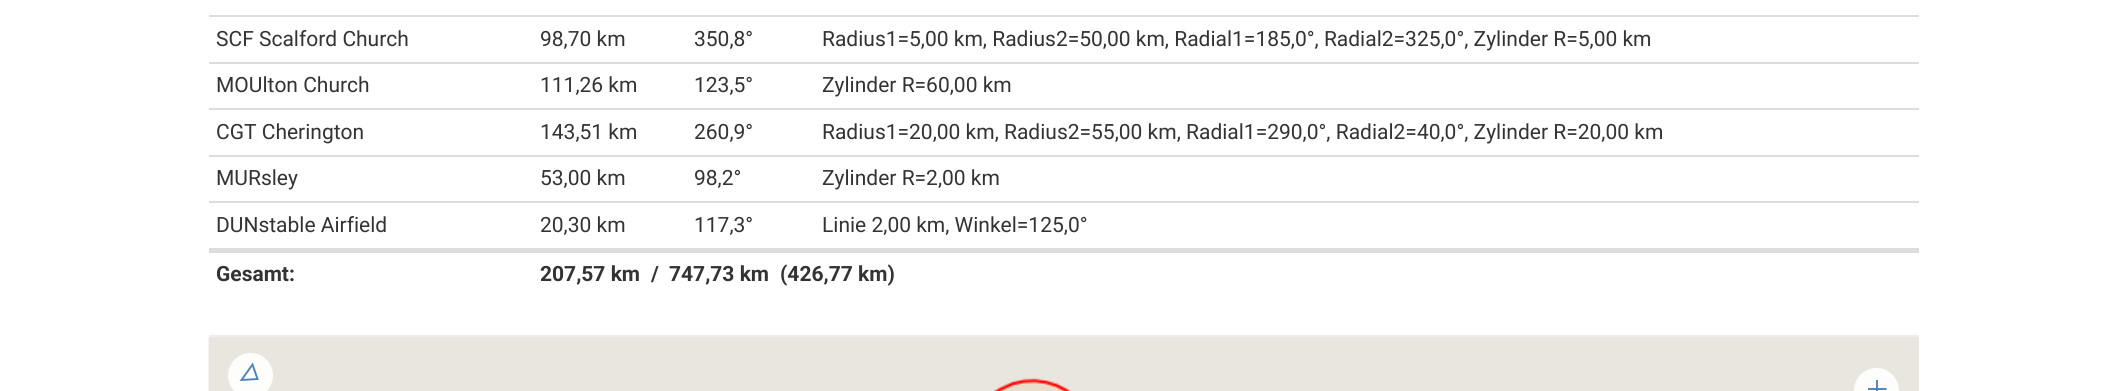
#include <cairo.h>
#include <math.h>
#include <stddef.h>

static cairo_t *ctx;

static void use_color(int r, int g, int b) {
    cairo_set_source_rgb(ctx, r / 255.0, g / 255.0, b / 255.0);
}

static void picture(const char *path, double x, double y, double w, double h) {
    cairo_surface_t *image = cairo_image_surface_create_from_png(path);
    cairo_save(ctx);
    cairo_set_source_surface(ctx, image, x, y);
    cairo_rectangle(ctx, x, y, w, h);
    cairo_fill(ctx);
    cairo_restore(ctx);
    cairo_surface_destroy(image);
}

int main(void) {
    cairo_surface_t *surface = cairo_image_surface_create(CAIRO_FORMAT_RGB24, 2127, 391);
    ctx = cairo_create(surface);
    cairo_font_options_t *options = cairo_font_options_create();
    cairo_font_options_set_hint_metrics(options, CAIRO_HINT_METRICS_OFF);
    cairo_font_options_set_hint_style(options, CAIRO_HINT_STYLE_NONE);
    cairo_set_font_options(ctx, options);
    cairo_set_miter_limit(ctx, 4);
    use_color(255, 255, 255);
    cairo_paint(ctx);
    use_color(221, 221, 221);
    cairo_rectangle(ctx, 209, 15, 1710, 2);
    cairo_fill(ctx);
    cairo_select_font_face(ctx, "Roboto", CAIRO_FONT_SLANT_NORMAL, CAIRO_FONT_WEIGHT_NORMAL);
    cairo_set_font_size(ctx, 21);
    use_color(51, 51, 51);
    cairo_move_to(ctx, 216, 46);
    cairo_show_text(ctx, "SCF Scalford Church");
    cairo_move_to(ctx, 540, 46);
    cairo_show_text(ctx, "98,70 km");
    cairo_move_to(ctx, 694, 46);
    cairo_show_text(ctx, "350,8°");
    cairo_move_to(ctx, 822, 46);
    cairo_show_text(ctx, "Radius1=5,00 km, Radius2=50,00 km, Radial1=185,0°, Radial2=325,0°, Zylinder R=5,00 km");
    use_color(221, 221, 221);
    cairo_rectangle(ctx, 209, 62, 1710, 2);
    cairo_fill(ctx);
    use_color(51, 51, 51);
    cairo_move_to(ctx, 216, 92);
    cairo_show_text(ctx, "MOUlton Church");
    cairo_move_to(ctx, 540, 92);
    cairo_show_text(ctx, "111,26 km");
    cairo_move_to(ctx, 694, 92);
    cairo_show_text(ctx, "123,5°");
    cairo_move_to(ctx, 822, 92);
    cairo_show_text(ctx, "Zylinder R=60,00 km");
    use_color(221, 221, 221);
    cairo_rectangle(ctx, 209, 108, 1710, 2);
    cairo_fill(ctx);
    use_color(51, 51, 51);
    cairo_move_to(ctx, 216, 139);
    cairo_show_text(ctx, "CGT Cherington");
    cairo_move_to(ctx, 540, 139);
    cairo_show_text(ctx, "143,51 km");
    cairo_move_to(ctx, 694, 139);
    cairo_show_text(ctx, "260,9°");
    cairo_move_to(ctx, 822, 139);
    cairo_show_text(ctx, "Radius1=20,00 km, Radius2=55,00 km, Radial1=290,0°, Radial2=40,0°, Zylinder R=20,00 km");
    use_color(221, 221, 221);
    cairo_rectangle(ctx, 209, 155, 1710, 2);
    cairo_fill(ctx);
    use_color(51, 51, 51);
    cairo_move_to(ctx, 216, 185);
    cairo_show_text(ctx, "MURsley");
    cairo_move_to(ctx, 540, 185);
    cairo_show_text(ctx, "53,00 km");
    cairo_move_to(ctx, 694, 185);
    cairo_show_text(ctx, "98,2°");
    cairo_move_to(ctx, 822, 185);
    cairo_show_text(ctx, "Zylinder R=2,00 km");
    use_color(221, 221, 221);
    cairo_rectangle(ctx, 209, 201, 1710, 2);
    cairo_fill(ctx);
    use_color(51, 51, 51);
    cairo_move_to(ctx, 216, 232);
    cairo_show_text(ctx, "DUNstable Airfield");
    cairo_move_to(ctx, 540, 232);
    cairo_show_text(ctx, "20,30 km");
    cairo_move_to(ctx, 694, 232);
    cairo_show_text(ctx, "117,3°");
    cairo_move_to(ctx, 822, 232);
    cairo_show_text(ctx, "Linie 2,00 km, Winkel=125,0°");
    use_color(221, 221, 221);
    cairo_rectangle(ctx, 209, 248, 1710, 5);
    cairo_fill(ctx);
    cairo_select_font_face(ctx, "Roboto", CAIRO_FONT_SLANT_NORMAL, CAIRO_FONT_WEIGHT_BOLD);
    use_color(51, 51, 51);
    cairo_move_to(ctx, 216, 281);
    cairo_show_text(ctx, "Gesamt:");
    cairo_move_to(ctx, 540, 281);
    cairo_show_text(ctx, "207,57 km");
    cairo_move_to(ctx, 651, 281);
    cairo_show_text(ctx, "/");
    cairo_move_to(ctx, 669, 281);
    cairo_show_text(ctx, "747,73 km");
    cairo_move_to(ctx, 780, 281);
    cairo_show_text(ctx, "(426,77 km)");
    use_color(238, 238, 238);
    cairo_rectangle(ctx, 209, 335, 1710, 3);
    cairo_fill(ctx);
    use_color(239, 233, 225);
    cairo_rectangle(ctx, 1918, 338, 1, 53);
    cairo_fill(ctx);
    picture("img1.png", 208, 337, 1711, 54);
    use_color(253, 253, 252);
    cairo_arc(ctx, 250.5, 375.5, 22.5, 0, 2 * M_PI);
    cairo_fill(ctx);
    cairo_new_path(ctx);
    cairo_move_to(ctx, 241.5, 380);
    cairo_line_to(ctx, 252.5, 364.5);
    cairo_line_to(ctx, 257.5, 379);
    cairo_close_path(ctx);
    use_color(79, 129, 189);
    cairo_set_line_width(ctx, 1.9);
    cairo_stroke(ctx);
    use_color(253, 253, 252);
    cairo_arc(ctx, 1876.5, 390.5, 22.5, 0, 2 * M_PI);
    cairo_fill(ctx);
    cairo_new_path(ctx);
    cairo_move_to(ctx, 1877, 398.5);
    cairo_line_to(ctx, 1877, 380);
    cairo_move_to(ctx, 1868, 389);
    cairo_line_to(ctx, 1886.5, 389);
    use_color(79, 129, 189);
    cairo_stroke(ctx);
    cairo_surface_write_to_png(surface, "result.png");
    cairo_font_options_destroy(options);
    cairo_destroy(ctx);
    cairo_surface_destroy(surface);
    return 0;
}
